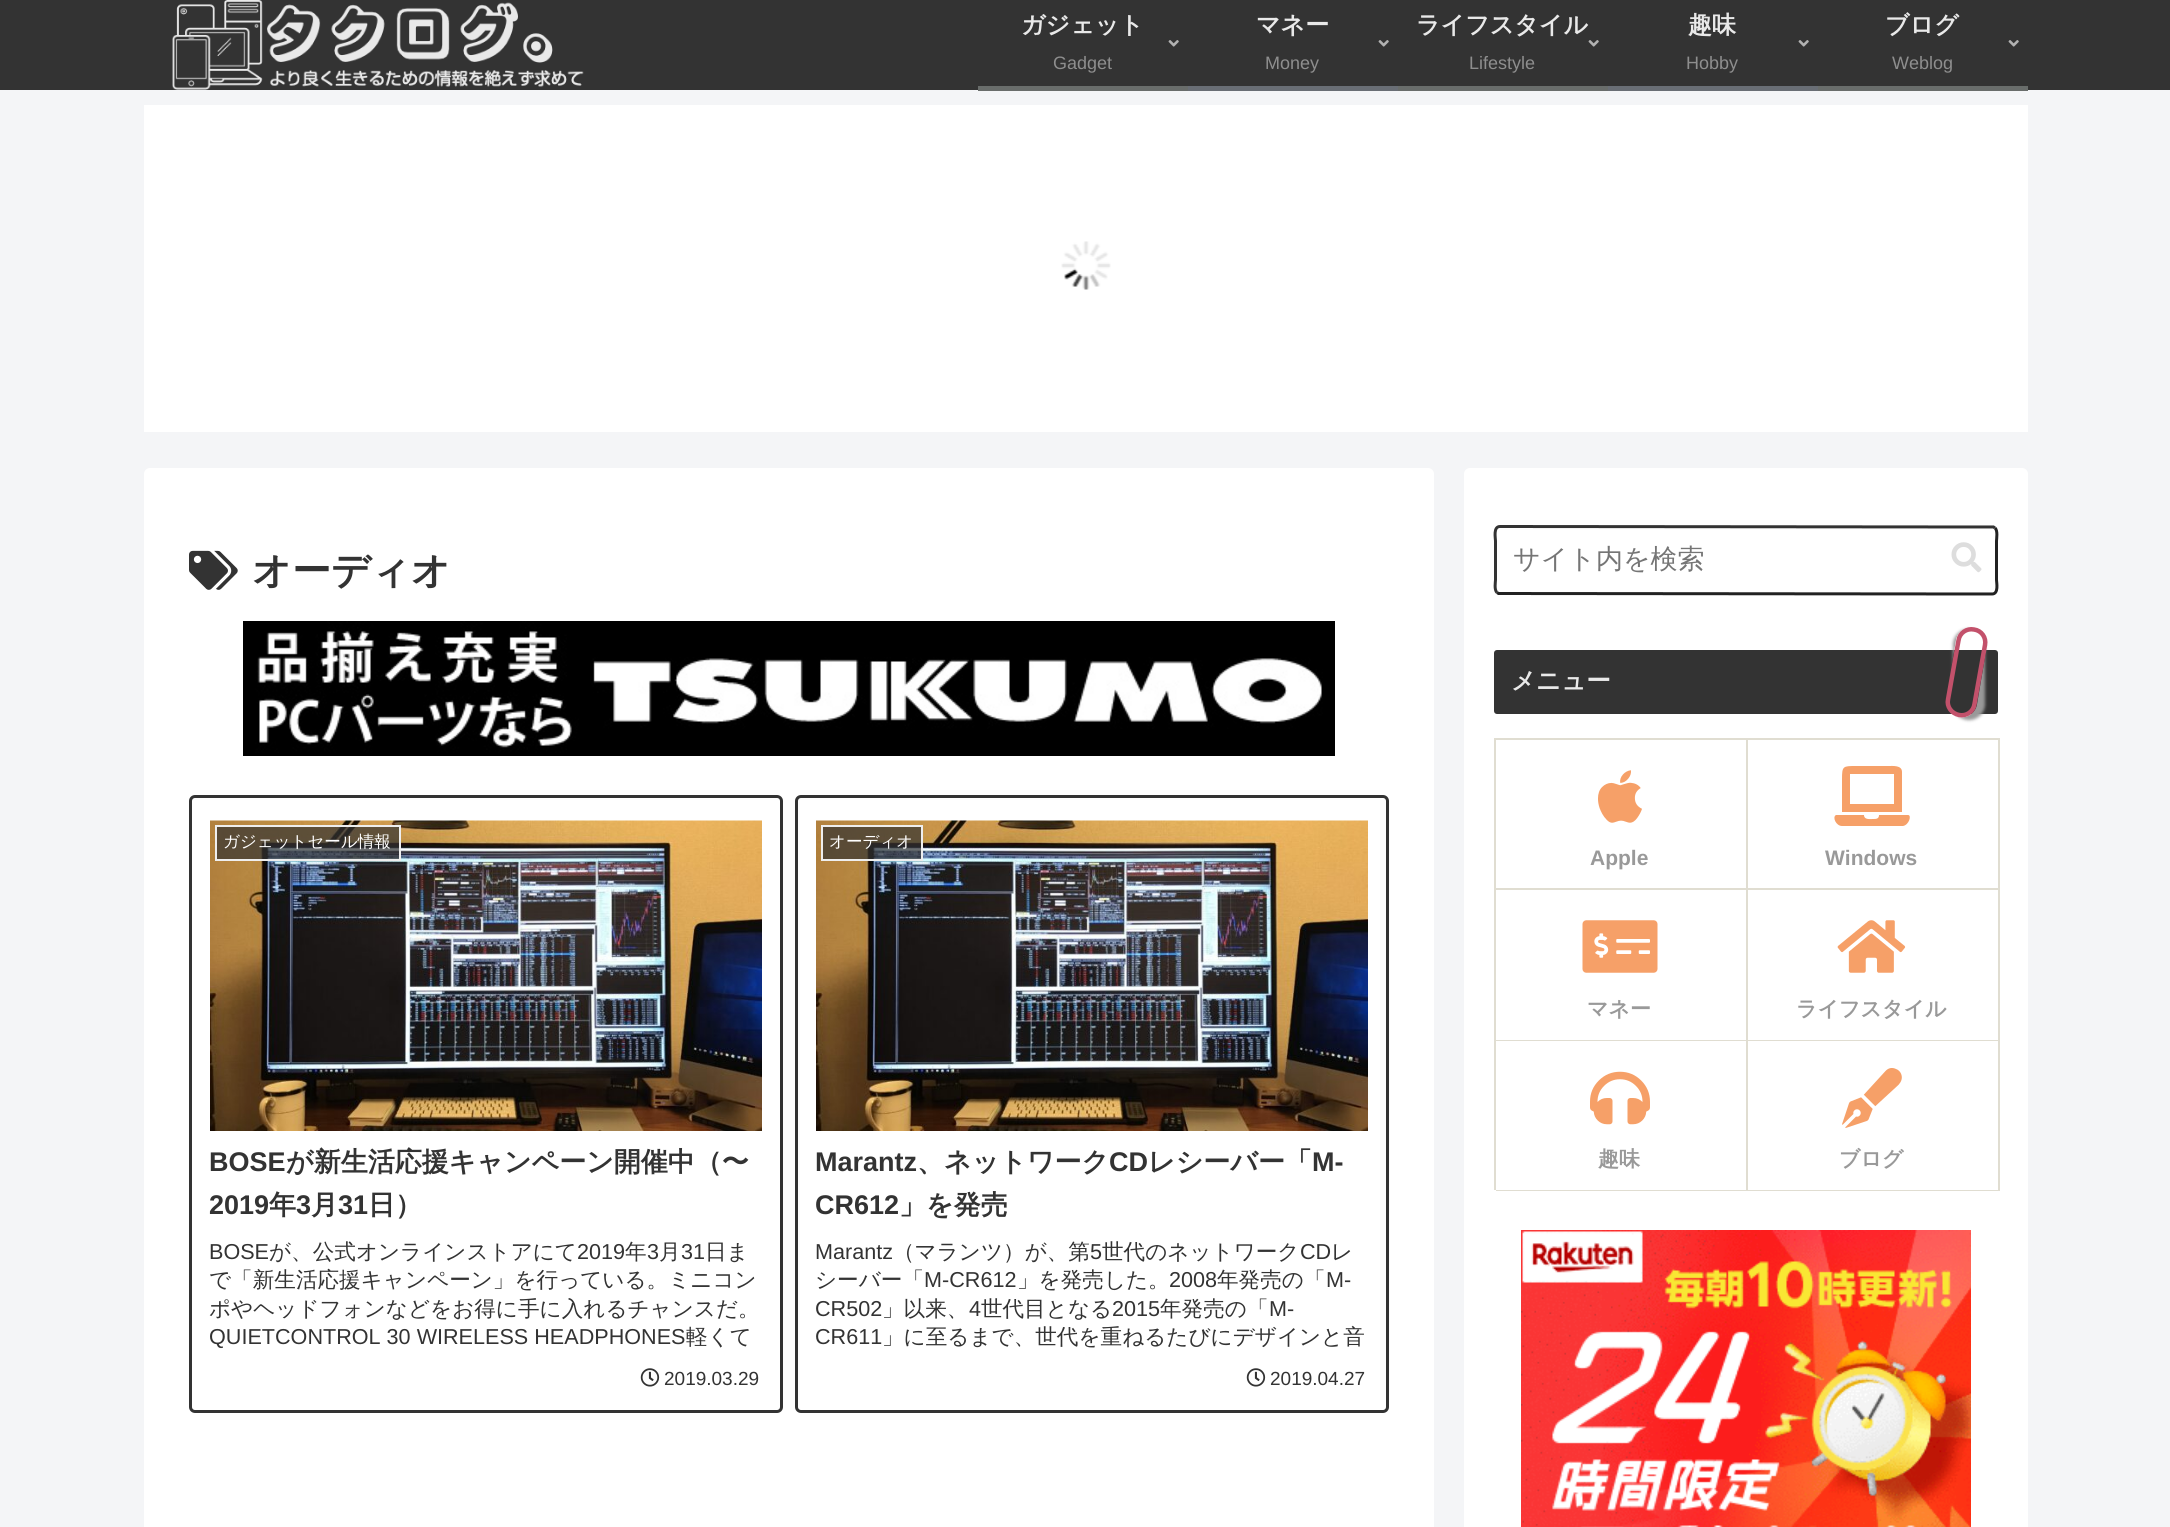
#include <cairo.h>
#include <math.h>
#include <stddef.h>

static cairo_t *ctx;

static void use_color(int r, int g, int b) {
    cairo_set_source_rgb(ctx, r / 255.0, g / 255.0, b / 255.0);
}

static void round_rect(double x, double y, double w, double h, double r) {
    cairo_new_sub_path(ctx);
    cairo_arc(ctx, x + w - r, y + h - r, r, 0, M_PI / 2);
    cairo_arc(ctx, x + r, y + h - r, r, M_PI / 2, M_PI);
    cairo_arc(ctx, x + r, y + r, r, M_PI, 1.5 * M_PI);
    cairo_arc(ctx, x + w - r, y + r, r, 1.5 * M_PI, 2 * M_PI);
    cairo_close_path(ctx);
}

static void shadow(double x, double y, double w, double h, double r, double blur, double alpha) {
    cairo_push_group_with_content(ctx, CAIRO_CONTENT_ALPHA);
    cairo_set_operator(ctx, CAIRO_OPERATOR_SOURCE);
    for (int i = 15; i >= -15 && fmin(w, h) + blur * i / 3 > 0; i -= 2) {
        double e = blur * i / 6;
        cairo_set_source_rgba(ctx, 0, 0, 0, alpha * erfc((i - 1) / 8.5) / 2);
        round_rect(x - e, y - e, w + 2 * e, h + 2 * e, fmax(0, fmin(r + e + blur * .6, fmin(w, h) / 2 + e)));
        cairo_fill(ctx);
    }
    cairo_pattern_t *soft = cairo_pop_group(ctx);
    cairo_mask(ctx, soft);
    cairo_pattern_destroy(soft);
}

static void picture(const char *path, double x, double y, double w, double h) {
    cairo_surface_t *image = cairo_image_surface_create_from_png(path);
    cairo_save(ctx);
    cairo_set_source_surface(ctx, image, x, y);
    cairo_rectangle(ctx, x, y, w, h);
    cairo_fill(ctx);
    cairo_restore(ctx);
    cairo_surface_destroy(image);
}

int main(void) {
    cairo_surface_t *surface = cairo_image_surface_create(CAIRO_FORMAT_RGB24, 2170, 1527);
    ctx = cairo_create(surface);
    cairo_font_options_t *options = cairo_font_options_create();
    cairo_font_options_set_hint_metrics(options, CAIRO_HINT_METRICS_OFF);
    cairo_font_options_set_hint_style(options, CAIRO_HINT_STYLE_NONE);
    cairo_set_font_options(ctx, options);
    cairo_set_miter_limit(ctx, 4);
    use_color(244, 245, 247);
    cairo_paint(ctx);
    use_color(51, 51, 51);
    cairo_rectangle(ctx, 0, 0, 2170, 90);
    cairo_fill(ctx);
    picture("img1.png", 172, 0, 412, 90);
    use_color(105, 109, 107);
    cairo_rectangle(ctx, 978, 86, 210, 5);
    cairo_fill(ctx);
    cairo_select_font_face(ctx, "WenQuanYi Zen Hei", CAIRO_FONT_SLANT_NORMAL, CAIRO_FONT_WEIGHT_BOLD);
    cairo_set_font_size(ctx, 24);
    use_color(233, 233, 233);
    cairo_move_to(ctx, 1021, 33);
    cairo_show_text(ctx, "ガジェット");
    cairo_select_font_face(ctx, "Liberation Sans", CAIRO_FONT_SLANT_NORMAL, CAIRO_FONT_WEIGHT_NORMAL);
    cairo_set_font_size(ctx, 18);
    use_color(142, 142, 142);
    cairo_move_to(ctx, 1053, 69);
    cairo_show_text(ctx, "Gadget");
    picture("img2.png", 1168, 40, 11, 7);
    use_color(105, 110, 117);
    cairo_rectangle(ctx, 1188, 86, 210, 5);
    cairo_fill(ctx);
    cairo_select_font_face(ctx, "WenQuanYi Zen Hei", CAIRO_FONT_SLANT_NORMAL, CAIRO_FONT_WEIGHT_BOLD);
    cairo_set_font_size(ctx, 24);
    use_color(233, 233, 233);
    cairo_move_to(ctx, 1256, 33);
    cairo_show_text(ctx, "マネー");
    cairo_select_font_face(ctx, "Liberation Sans", CAIRO_FONT_SLANT_NORMAL, CAIRO_FONT_WEIGHT_NORMAL);
    cairo_set_font_size(ctx, 18);
    use_color(142, 142, 142);
    cairo_move_to(ctx, 1265, 69);
    cairo_show_text(ctx, "Money");
    picture("img2.png", 1378, 40, 11, 7);
    use_color(105, 109, 107);
    cairo_rectangle(ctx, 1398, 86, 210, 5);
    cairo_fill(ctx);
    cairo_select_font_face(ctx, "WenQuanYi Zen Hei", CAIRO_FONT_SLANT_NORMAL, CAIRO_FONT_WEIGHT_BOLD);
    cairo_set_font_size(ctx, 24);
    use_color(233, 233, 233);
    cairo_move_to(ctx, 1416, 33);
    cairo_show_text(ctx, "ライフスタイル");
    cairo_select_font_face(ctx, "Liberation Sans", CAIRO_FONT_SLANT_NORMAL, CAIRO_FONT_WEIGHT_NORMAL);
    cairo_set_font_size(ctx, 18);
    use_color(142, 142, 142);
    cairo_move_to(ctx, 1469, 69);
    cairo_show_text(ctx, "Lifestyle");
    picture("img2.png", 1588, 40, 11, 7);
    use_color(105, 110, 117);
    cairo_rectangle(ctx, 1608, 86, 210, 5);
    cairo_fill(ctx);
    cairo_select_font_face(ctx, "WenQuanYi Zen Hei", CAIRO_FONT_SLANT_NORMAL, CAIRO_FONT_WEIGHT_BOLD);
    cairo_set_font_size(ctx, 24);
    use_color(233, 233, 233);
    cairo_move_to(ctx, 1688, 33);
    cairo_show_text(ctx, "趣味");
    cairo_select_font_face(ctx, "Liberation Sans", CAIRO_FONT_SLANT_NORMAL, CAIRO_FONT_WEIGHT_NORMAL);
    cairo_set_font_size(ctx, 18);
    use_color(142, 142, 142);
    cairo_move_to(ctx, 1686, 69);
    cairo_show_text(ctx, "Hobby");
    picture("img2.png", 1798, 40, 11, 7);
    use_color(105, 109, 107);
    cairo_rectangle(ctx, 1818, 86, 210, 5);
    cairo_fill(ctx);
    cairo_select_font_face(ctx, "WenQuanYi Zen Hei", CAIRO_FONT_SLANT_NORMAL, CAIRO_FONT_WEIGHT_BOLD);
    cairo_set_font_size(ctx, 24);
    use_color(233, 233, 233);
    cairo_move_to(ctx, 1885, 33);
    cairo_show_text(ctx, "ブログ");
    cairo_select_font_face(ctx, "Liberation Sans", CAIRO_FONT_SLANT_NORMAL, CAIRO_FONT_WEIGHT_NORMAL);
    cairo_set_font_size(ctx, 18);
    use_color(142, 142, 142);
    cairo_move_to(ctx, 1892, 69);
    cairo_show_text(ctx, "Weblog");
    picture("img2.png", 2008, 40, 11, 7);
    use_color(255, 255, 255);
    cairo_rectangle(ctx, 144, 105, 1884, 327);
    cairo_fill(ctx);
    picture("img3.png", 1061, 241, 50, 49);
    round_rect(144, 468, 1290, 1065, 6);
    cairo_fill(ctx);
    picture("img4.png", 189, 550, 49, 40);
    cairo_select_font_face(ctx, "WenQuanYi Zen Hei", CAIRO_FONT_SLANT_NORMAL, CAIRO_FONT_WEIGHT_BOLD);
    cairo_set_font_size(ctx, 39);
    use_color(51, 51, 51);
    cairo_move_to(ctx, 252, 584);
    cairo_show_text(ctx, "オーディオ");
    picture("img5.png", 243, 621, 1092, 135);
    round_rect(190.5, 796.5, 591, 615, 4.5);
    cairo_set_line_width(ctx, 3);
    cairo_stroke(ctx);
    picture("img6.png", 210, 820, 552, 311);
    cairo_set_source_rgba(ctx, 0.2, 0.2, 0.2, 0.7);
    cairo_rectangle(ctx, 216, 826, 184, 34);
    cairo_fill_preserve(ctx);
    use_color(238, 238, 238);
    cairo_set_line_width(ctx, 2);
    cairo_stroke(ctx);
    cairo_select_font_face(ctx, "WenQuanYi Zen Hei Medium", CAIRO_FONT_SLANT_NORMAL, CAIRO_FONT_WEIGHT_NORMAL);
    cairo_set_font_size(ctx, 16.5);
    use_color(255, 255, 255);
    cairo_move_to(ctx, 223, 847);
    cairo_show_text(ctx, "ガジェットセール情報");
    cairo_select_font_face(ctx, "Liberation Sans", CAIRO_FONT_SLANT_NORMAL, CAIRO_FONT_WEIGHT_BOLD);
    cairo_set_font_size(ctx, 27);
    use_color(51, 51, 51);
    cairo_move_to(ctx, 209, 1171);
    cairo_show_text(ctx, "BOSE");
    cairo_select_font_face(ctx, "WenQuanYi Zen Hei", CAIRO_FONT_SLANT_NORMAL, CAIRO_FONT_WEIGHT_BOLD);
    cairo_move_to(ctx, 286, 1171);
    cairo_show_text(ctx, "が新生活応援キャンペーン開催中（〜");
    cairo_select_font_face(ctx, "Liberation Sans", CAIRO_FONT_SLANT_NORMAL, CAIRO_FONT_WEIGHT_BOLD);
    cairo_move_to(ctx, 209, 1214);
    cairo_show_text(ctx, "2019");
    cairo_select_font_face(ctx, "WenQuanYi Zen Hei", CAIRO_FONT_SLANT_NORMAL, CAIRO_FONT_WEIGHT_BOLD);
    cairo_move_to(ctx, 269, 1214);
    cairo_show_text(ctx, "年");
    cairo_select_font_face(ctx, "Liberation Sans", CAIRO_FONT_SLANT_NORMAL, CAIRO_FONT_WEIGHT_BOLD);
    cairo_move_to(ctx, 296, 1214);
    cairo_show_text(ctx, "3");
    cairo_select_font_face(ctx, "WenQuanYi Zen Hei", CAIRO_FONT_SLANT_NORMAL, CAIRO_FONT_WEIGHT_BOLD);
    cairo_move_to(ctx, 311, 1214);
    cairo_show_text(ctx, "月");
    cairo_select_font_face(ctx, "Liberation Sans", CAIRO_FONT_SLANT_NORMAL, CAIRO_FONT_WEIGHT_BOLD);
    cairo_move_to(ctx, 338, 1214);
    cairo_show_text(ctx, "31");
    cairo_select_font_face(ctx, "WenQuanYi Zen Hei", CAIRO_FONT_SLANT_NORMAL, CAIRO_FONT_WEIGHT_BOLD);
    cairo_move_to(ctx, 368, 1214);
    cairo_show_text(ctx, "日）");
    cairo_select_font_face(ctx, "Liberation Sans", CAIRO_FONT_SLANT_NORMAL, CAIRO_FONT_WEIGHT_NORMAL);
    cairo_set_font_size(ctx, 21.6);
    cairo_move_to(ctx, 209, 1259);
    cairo_show_text(ctx, "BOSE");
    cairo_select_font_face(ctx, "WenQuanYi Zen Hei Medium", CAIRO_FONT_SLANT_NORMAL, CAIRO_FONT_WEIGHT_NORMAL);
    cairo_move_to(ctx, 269, 1259);
    cairo_show_text(ctx, "が、公式オンラインストアにて");
    cairo_select_font_face(ctx, "Liberation Sans", CAIRO_FONT_SLANT_NORMAL, CAIRO_FONT_WEIGHT_NORMAL);
    cairo_move_to(ctx, 577, 1259);
    cairo_show_text(ctx, "2019");
    cairo_select_font_face(ctx, "WenQuanYi Zen Hei Medium", CAIRO_FONT_SLANT_NORMAL, CAIRO_FONT_WEIGHT_NORMAL);
    cairo_move_to(ctx, 625, 1259);
    cairo_show_text(ctx, "年");
    cairo_select_font_face(ctx, "Liberation Sans", CAIRO_FONT_SLANT_NORMAL, CAIRO_FONT_WEIGHT_NORMAL);
    cairo_move_to(ctx, 647, 1259);
    cairo_show_text(ctx, "3");
    cairo_select_font_face(ctx, "WenQuanYi Zen Hei Medium", CAIRO_FONT_SLANT_NORMAL, CAIRO_FONT_WEIGHT_NORMAL);
    cairo_move_to(ctx, 659, 1259);
    cairo_show_text(ctx, "月");
    cairo_select_font_face(ctx, "Liberation Sans", CAIRO_FONT_SLANT_NORMAL, CAIRO_FONT_WEIGHT_NORMAL);
    cairo_move_to(ctx, 681, 1259);
    cairo_show_text(ctx, "31");
    cairo_select_font_face(ctx, "WenQuanYi Zen Hei Medium", CAIRO_FONT_SLANT_NORMAL, CAIRO_FONT_WEIGHT_NORMAL);
    cairo_move_to(ctx, 705, 1259);
    cairo_show_text(ctx, "日ま");
    cairo_move_to(ctx, 209, 1287);
    cairo_show_text(ctx, "で「新生活応援キャンペーン」を行っている。ミニコン");
    cairo_move_to(ctx, 209, 1316);
    cairo_show_text(ctx, "ポやヘッドフォンなどをお得に手に入れるチャンスだ。");
    cairo_select_font_face(ctx, "Liberation Sans", CAIRO_FONT_SLANT_NORMAL, CAIRO_FONT_WEIGHT_NORMAL);
    cairo_move_to(ctx, 209, 1344);
    cairo_show_text(ctx, "QUIETCONTROL 30 WIRELESS HEADPHONES");
    cairo_select_font_face(ctx, "WenQuanYi Zen Hei Medium", CAIRO_FONT_SLANT_NORMAL, CAIRO_FONT_WEIGHT_NORMAL);
    cairo_move_to(ctx, 686, 1344);
    cairo_show_text(ctx, "軽くて");
    picture("img7.png", 640, 1368, 20, 19);
    cairo_select_font_face(ctx, "Liberation Sans", CAIRO_FONT_SLANT_NORMAL, CAIRO_FONT_WEIGHT_NORMAL);
    cairo_set_font_size(ctx, 19);
    cairo_move_to(ctx, 664, 1385);
    cairo_show_text(ctx, "2019.03.29");
    round_rect(796.5, 796.5, 591, 615, 4.5);
    cairo_set_line_width(ctx, 3);
    cairo_stroke(ctx);
    picture("img6.png", 816, 820, 552, 311);
    cairo_set_source_rgba(ctx, 0.2, 0.2, 0.2, 0.7);
    cairo_rectangle(ctx, 822, 826, 100, 34);
    cairo_fill_preserve(ctx);
    use_color(238, 238, 238);
    cairo_set_line_width(ctx, 2);
    cairo_stroke(ctx);
    cairo_select_font_face(ctx, "WenQuanYi Zen Hei Medium", CAIRO_FONT_SLANT_NORMAL, CAIRO_FONT_WEIGHT_NORMAL);
    cairo_set_font_size(ctx, 16.5);
    use_color(255, 255, 255);
    cairo_move_to(ctx, 829, 847);
    cairo_show_text(ctx, "オーディオ");
    cairo_select_font_face(ctx, "Liberation Sans", CAIRO_FONT_SLANT_NORMAL, CAIRO_FONT_WEIGHT_BOLD);
    cairo_set_font_size(ctx, 27);
    use_color(51, 51, 51);
    cairo_move_to(ctx, 815, 1171);
    cairo_show_text(ctx, "Marantz");
    cairo_select_font_face(ctx, "WenQuanYi Zen Hei", CAIRO_FONT_SLANT_NORMAL, CAIRO_FONT_WEIGHT_BOLD);
    cairo_move_to(ctx, 917, 1171);
    cairo_show_text(ctx, "、ネットワーク");
    cairo_select_font_face(ctx, "Liberation Sans", CAIRO_FONT_SLANT_NORMAL, CAIRO_FONT_WEIGHT_BOLD);
    cairo_move_to(ctx, 1109, 1171);
    cairo_show_text(ctx, "CD");
    cairo_select_font_face(ctx, "WenQuanYi Zen Hei", CAIRO_FONT_SLANT_NORMAL, CAIRO_FONT_WEIGHT_BOLD);
    cairo_move_to(ctx, 1148, 1171);
    cairo_show_text(ctx, "レシーバー「");
    cairo_select_font_face(ctx, "Liberation Sans", CAIRO_FONT_SLANT_NORMAL, CAIRO_FONT_WEIGHT_BOLD);
    cairo_move_to(ctx, 1312, 1171);
    cairo_show_text(ctx, "M-");
    cairo_move_to(ctx, 815, 1214);
    cairo_show_text(ctx, "CR612");
    cairo_select_font_face(ctx, "WenQuanYi Zen Hei", CAIRO_FONT_SLANT_NORMAL, CAIRO_FONT_WEIGHT_BOLD);
    cairo_move_to(ctx, 899, 1214);
    cairo_show_text(ctx, "」を発売");
    cairo_select_font_face(ctx, "Liberation Sans", CAIRO_FONT_SLANT_NORMAL, CAIRO_FONT_WEIGHT_NORMAL);
    cairo_set_font_size(ctx, 21.6);
    cairo_move_to(ctx, 815, 1259);
    cairo_show_text(ctx, "Marantz");
    cairo_select_font_face(ctx, "WenQuanYi Zen Hei Medium", CAIRO_FONT_SLANT_NORMAL, CAIRO_FONT_WEIGHT_NORMAL);
    cairo_move_to(ctx, 893, 1259);
    cairo_show_text(ctx, "（マランツ）が、第");
    cairo_select_font_face(ctx, "Liberation Sans", CAIRO_FONT_SLANT_NORMAL, CAIRO_FONT_WEIGHT_NORMAL);
    cairo_move_to(ctx, 1090, 1259);
    cairo_show_text(ctx, "5");
    cairo_select_font_face(ctx, "WenQuanYi Zen Hei Medium", CAIRO_FONT_SLANT_NORMAL, CAIRO_FONT_WEIGHT_NORMAL);
    cairo_move_to(ctx, 1102, 1259);
    cairo_show_text(ctx, "世代のネットワーク");
    cairo_select_font_face(ctx, "Liberation Sans", CAIRO_FONT_SLANT_NORMAL, CAIRO_FONT_WEIGHT_NORMAL);
    cairo_move_to(ctx, 1300, 1259);
    cairo_show_text(ctx, "CD");
    cairo_select_font_face(ctx, "WenQuanYi Zen Hei Medium", CAIRO_FONT_SLANT_NORMAL, CAIRO_FONT_WEIGHT_NORMAL);
    cairo_move_to(ctx, 1331, 1259);
    cairo_show_text(ctx, "レ");
    cairo_move_to(ctx, 815, 1287);
    cairo_show_text(ctx, "シーバー「");
    cairo_select_font_face(ctx, "Liberation Sans", CAIRO_FONT_SLANT_NORMAL, CAIRO_FONT_WEIGHT_NORMAL);
    cairo_move_to(ctx, 924, 1287);
    cairo_show_text(ctx, "M-CR612");
    cairo_select_font_face(ctx, "WenQuanYi Zen Hei Medium", CAIRO_FONT_SLANT_NORMAL, CAIRO_FONT_WEIGHT_NORMAL);
    cairo_move_to(ctx, 1017, 1287);
    cairo_show_text(ctx, "」を発売した。");
    cairo_select_font_face(ctx, "Liberation Sans", CAIRO_FONT_SLANT_NORMAL, CAIRO_FONT_WEIGHT_NORMAL);
    cairo_move_to(ctx, 1169, 1287);
    cairo_show_text(ctx, "2008");
    cairo_select_font_face(ctx, "WenQuanYi Zen Hei Medium", CAIRO_FONT_SLANT_NORMAL, CAIRO_FONT_WEIGHT_NORMAL);
    cairo_move_to(ctx, 1217, 1287);
    cairo_show_text(ctx, "年発売の「");
    cairo_select_font_face(ctx, "Liberation Sans", CAIRO_FONT_SLANT_NORMAL, CAIRO_FONT_WEIGHT_NORMAL);
    cairo_move_to(ctx, 1326, 1287);
    cairo_show_text(ctx, "M-");
    cairo_move_to(ctx, 815, 1316);
    cairo_show_text(ctx, "CR502");
    cairo_select_font_face(ctx, "WenQuanYi Zen Hei Medium", CAIRO_FONT_SLANT_NORMAL, CAIRO_FONT_WEIGHT_NORMAL);
    cairo_move_to(ctx, 882, 1316);
    cairo_show_text(ctx, "」以来、");
    cairo_select_font_face(ctx, "Liberation Sans", CAIRO_FONT_SLANT_NORMAL, CAIRO_FONT_WEIGHT_NORMAL);
    cairo_move_to(ctx, 969, 1316);
    cairo_show_text(ctx, "4");
    cairo_select_font_face(ctx, "WenQuanYi Zen Hei Medium", CAIRO_FONT_SLANT_NORMAL, CAIRO_FONT_WEIGHT_NORMAL);
    cairo_move_to(ctx, 981, 1316);
    cairo_show_text(ctx, "世代目となる");
    cairo_select_font_face(ctx, "Liberation Sans", CAIRO_FONT_SLANT_NORMAL, CAIRO_FONT_WEIGHT_NORMAL);
    cairo_move_to(ctx, 1112, 1316);
    cairo_show_text(ctx, "2015");
    cairo_select_font_face(ctx, "WenQuanYi Zen Hei Medium", CAIRO_FONT_SLANT_NORMAL, CAIRO_FONT_WEIGHT_NORMAL);
    cairo_move_to(ctx, 1160, 1316);
    cairo_show_text(ctx, "年発売の「");
    cairo_select_font_face(ctx, "Liberation Sans", CAIRO_FONT_SLANT_NORMAL, CAIRO_FONT_WEIGHT_NORMAL);
    cairo_move_to(ctx, 1269, 1316);
    cairo_show_text(ctx, "M-");
    cairo_move_to(ctx, 815, 1344);
    cairo_show_text(ctx, "CR611");
    cairo_select_font_face(ctx, "WenQuanYi Zen Hei Medium", CAIRO_FONT_SLANT_NORMAL, CAIRO_FONT_WEIGHT_NORMAL);
    cairo_move_to(ctx, 882, 1344);
    cairo_show_text(ctx, "」に至るまで、世代を重ねるたびにデザインと音");
    picture("img7.png", 1246, 1368, 20, 19);
    cairo_select_font_face(ctx, "Liberation Sans", CAIRO_FONT_SLANT_NORMAL, CAIRO_FONT_WEIGHT_NORMAL);
    cairo_set_font_size(ctx, 19);
    cairo_move_to(ctx, 1270, 1385);
    cairo_show_text(ctx, "2019.04.27");
    use_color(255, 255, 255);
    round_rect(1464, 468, 564, 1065, 6);
    cairo_fill(ctx);
    cairo_new_path(ctx);
    cairo_move_to(ctx, 1995, 528);
    cairo_curve_to(ctx, 1998, 530.5, 1996.5, 539, 1996.5, 541);
    cairo_line_to(ctx, 1996.5, 580);
    cairo_curve_to(ctx, 1996.5, 582.5, 1999, 594, 1992, 594);
    cairo_line_to(ctx, 1498.5, 593.5);
    cairo_line_to(ctx, 1497, 592.5);
    use_color(34, 34, 34);
    cairo_set_line_width(ctx, 3);
    cairo_stroke(ctx);
    cairo_new_path(ctx);
    cairo_move_to(ctx, 1497, 592.5);
    cairo_curve_to(ctx, 1494, 590, 1495.5, 581.5, 1495.5, 580);
    cairo_line_to(ctx, 1495.5, 541);
    cairo_curve_to(ctx, 1495.5, 538, 1493, 526.5, 1500, 526.5);
    cairo_line_to(ctx, 1993.5, 527);
    cairo_line_to(ctx, 1995, 528);
    use_color(51, 51, 51);
    cairo_stroke(ctx);
    cairo_select_font_face(ctx, "WenQuanYi Zen Hei Medium", CAIRO_FONT_SLANT_NORMAL, CAIRO_FONT_WEIGHT_NORMAL);
    cairo_set_font_size(ctx, 27);
    use_color(117, 117, 117);
    cairo_move_to(ctx, 1513, 568);
    cairo_show_text(ctx, "サイト内を検索");
    picture("img8.png", 1951, 542, 31, 31);
    use_color(51, 51, 51);
    round_rect(1494, 650, 504, 64, 3);
    cairo_fill(ctx);
    cairo_select_font_face(ctx, "WenQuanYi Zen Hei", CAIRO_FONT_SLANT_NORMAL, CAIRO_FONT_WEIGHT_BOLD);
    cairo_set_font_size(ctx, 24.5);
    use_color(233, 233, 233);
    cairo_move_to(ctx, 1511, 689);
    cairo_show_text(ctx, "メニュー");
    cairo_save(ctx);
    cairo_set_fill_rule(ctx, CAIRO_FILL_RULE_EVEN_ODD);
    cairo_new_path(ctx);
    cairo_move_to(ctx, 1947, 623);
    cairo_line_to(ctx, 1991, 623);
    cairo_line_to(ctx, 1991, 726);
    cairo_line_to(ctx, 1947, 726);
    cairo_close_path(ctx);
    cairo_move_to(ctx, 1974.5, 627);
    cairo_curve_to(ctx, 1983, 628.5, 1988.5, 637, 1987, 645.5);
    cairo_line_to(ctx, 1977, 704.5);
    cairo_curve_to(ctx, 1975.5, 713, 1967, 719, 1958.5, 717);
    cairo_curve_to(ctx, 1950, 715.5, 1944.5, 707.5, 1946, 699);
    cairo_line_to(ctx, 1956, 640);
    cairo_curve_to(ctx, 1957.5, 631.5, 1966, 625.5, 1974.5, 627);
    cairo_close_path(ctx);
    cairo_clip(ctx);
    use_color(153, 153, 153);
    shadow(1953, 629, 32, 91, 16, 1.5, 1);
    cairo_restore(ctx);
    cairo_new_path(ctx);
    cairo_move_to(ctx, 1974, 629.5);
    cairo_curve_to(ctx, 1981.5, 630.5, 1986.5, 637.5, 1985, 645);
    cairo_line_to(ctx, 1974.5, 704);
    cairo_curve_to(ctx, 1973.5, 711.5, 1966.5, 716.5, 1959, 715);
    cairo_curve_to(ctx, 1951.5, 713.5, 1946.5, 706.5, 1948, 699.5);
    cairo_line_to(ctx, 1958.5, 640.5);
    cairo_curve_to(ctx, 1959.5, 633, 1966.5, 628, 1974, 629.5);
    cairo_close_path(ctx);
    use_color(195, 81, 107);
    cairo_set_line_width(ctx, 4.5);
    cairo_stroke(ctx);
    cairo_save(ctx);
    cairo_rectangle(ctx, 1494, 738, 252, 150);
    cairo_clip(ctx);
    use_color(224, 221, 209);
    cairo_set_fill_rule(ctx, CAIRO_FILL_RULE_EVEN_ODD);
    cairo_new_path(ctx);
    cairo_move_to(ctx, 1346, 590);
    cairo_line_to(ctx, 1894, 590);
    cairo_line_to(ctx, 1894, 1036);
    cairo_line_to(ctx, 1346, 1036);
    cairo_close_path(ctx);
    cairo_move_to(ctx, 1496, 740);
    cairo_line_to(ctx, 1748, 740);
    cairo_line_to(ctx, 1748, 890);
    cairo_line_to(ctx, 1496, 890);
    cairo_close_path(ctx);
    cairo_fill(ctx);
    cairo_restore(ctx);
    picture("img9.png", 1598, 770, 44, 53);
    cairo_select_font_face(ctx, "Liberation Sans", CAIRO_FONT_SLANT_NORMAL, CAIRO_FONT_WEIGHT_BOLD);
    cairo_set_font_size(ctx, 21);
    use_color(153, 153, 153);
    cairo_move_to(ctx, 1590, 865);
    cairo_show_text(ctx, "Apple");
    use_color(224, 221, 209);
    cairo_rectangle(ctx, 1998, 738, 2, 2);
    cairo_fill(ctx);
    cairo_new_path(ctx);
    cairo_move_to(ctx, 1748, 888);
    cairo_line_to(ctx, 1748, 890);
    cairo_line_to(ctx, 2000, 890);
    cairo_line_to(ctx, 2000, 740);
    cairo_line_to(ctx, 1998, 740);
    cairo_line_to(ctx, 1998, 888);
    cairo_close_path(ctx);
    cairo_fill(ctx);
    cairo_save(ctx);
    cairo_rectangle(ctx, 1746, 738, 252, 150);
    cairo_clip(ctx);
    cairo_set_fill_rule(ctx, CAIRO_FILL_RULE_EVEN_ODD);
    cairo_new_path(ctx);
    cairo_move_to(ctx, 1598, 590);
    cairo_line_to(ctx, 2146, 590);
    cairo_line_to(ctx, 2146, 1036);
    cairo_line_to(ctx, 1598, 1036);
    cairo_close_path(ctx);
    cairo_move_to(ctx, 1748, 740);
    cairo_line_to(ctx, 2000, 740);
    cairo_line_to(ctx, 2000, 890);
    cairo_line_to(ctx, 1748, 890);
    cairo_close_path(ctx);
    cairo_fill(ctx);
    cairo_restore(ctx);
    use_color(246, 160, 104);
    cairo_new_path(ctx);
    cairo_move_to(ctx, 1908, 815);
    cairo_curve_to(ctx, 1912, 815, 1909, 825, 1903, 826);
    cairo_line_to(ctx, 1842, 826);
    cairo_curve_to(ctx, 1836, 826, 1832, 817, 1836, 815);
    cairo_line_to(ctx, 1864, 815);
    cairo_curve_to(ctx, 1864, 820, 1870, 819, 1873, 819);
    cairo_curve_to(ctx, 1876, 819, 1879, 819, 1879, 815);
    cairo_close_path(ctx);
    cairo_move_to(ctx, 1902, 772);
    cairo_line_to(ctx, 1902, 812);
    cairo_line_to(ctx, 1842, 812);
    cairo_line_to(ctx, 1842, 779);
    cairo_curve_to(ctx, 1842, 766, 1843, 766, 1856, 766);
    cairo_line_to(ctx, 1888, 766);
    cairo_curve_to(ctx, 1893, 766, 1902, 765, 1902, 772);
    cairo_close_path(ctx);
    cairo_move_to(ctx, 1894, 804);
    cairo_line_to(ctx, 1894, 774);
    cairo_line_to(ctx, 1850, 774);
    cairo_line_to(ctx, 1850, 804);
    cairo_close_path(ctx);
    cairo_fill(ctx);
    use_color(153, 153, 153);
    cairo_move_to(ctx, 1825, 865);
    cairo_show_text(ctx, "Windows");
    cairo_save(ctx);
    cairo_rectangle(ctx, 1494, 888, 252, 152);
    cairo_clip(ctx);
    use_color(224, 221, 209);
    cairo_set_fill_rule(ctx, CAIRO_FILL_RULE_EVEN_ODD);
    cairo_new_path(ctx);
    cairo_move_to(ctx, 1346, 740);
    cairo_line_to(ctx, 1894, 740);
    cairo_line_to(ctx, 1894, 1188);
    cairo_line_to(ctx, 1346, 1188);
    cairo_close_path(ctx);
    cairo_move_to(ctx, 1496, 890);
    cairo_line_to(ctx, 1748, 890);
    cairo_line_to(ctx, 1748, 1041);
    cairo_line_to(ctx, 1496, 1041);
    cairo_close_path(ctx);
    cairo_fill(ctx);
    cairo_restore(ctx);
    picture("img10.png", 1582, 920, 76, 53);
    cairo_select_font_face(ctx, "WenQuanYi Zen Hei", CAIRO_FONT_SLANT_NORMAL, CAIRO_FONT_WEIGHT_BOLD);
    cairo_move_to(ctx, 1587, 1016);
    cairo_show_text(ctx, "マネー");
    use_color(224, 221, 209);
    cairo_new_path(ctx);
    cairo_move_to(ctx, 1748, 1040);
    cairo_line_to(ctx, 2000, 1040);
    cairo_line_to(ctx, 2000, 888);
    cairo_line_to(ctx, 1998, 888);
    cairo_line_to(ctx, 1998, 1040);
    cairo_close_path(ctx);
    cairo_fill(ctx);
    cairo_new_path(ctx);
    cairo_move_to(ctx, 1748, 1040);
    cairo_line_to(ctx, 1748, 1041);
    cairo_line_to(ctx, 2000, 1041);
    cairo_line_to(ctx, 2000, 890);
    cairo_line_to(ctx, 1998, 890);
    cairo_line_to(ctx, 1998, 1040);
    cairo_close_path(ctx);
    cairo_fill(ctx);
    cairo_save(ctx);
    cairo_rectangle(ctx, 1746, 888, 252, 152);
    cairo_clip(ctx);
    cairo_set_fill_rule(ctx, CAIRO_FILL_RULE_EVEN_ODD);
    cairo_new_path(ctx);
    cairo_move_to(ctx, 1598, 740);
    cairo_line_to(ctx, 2146, 740);
    cairo_line_to(ctx, 2146, 1188);
    cairo_line_to(ctx, 1598, 1188);
    cairo_close_path(ctx);
    cairo_move_to(ctx, 1748, 890);
    cairo_line_to(ctx, 2000, 890);
    cairo_line_to(ctx, 2000, 1041);
    cairo_line_to(ctx, 1748, 1041);
    cairo_close_path(ctx);
    cairo_fill(ctx);
    cairo_restore(ctx);
    picture("img11.png", 1837, 920, 69, 53);
    use_color(153, 153, 153);
    cairo_move_to(ctx, 1796, 1016);
    cairo_show_text(ctx, "ライフスタイル");
    use_color(224, 221, 209);
    cairo_new_path(ctx);
    cairo_move_to(ctx, 1496, 1190);
    cairo_line_to(ctx, 1496, 1191);
    cairo_line_to(ctx, 1748, 1191);
    cairo_line_to(ctx, 1748, 1041);
    cairo_line_to(ctx, 1746, 1041);
    cairo_line_to(ctx, 1746, 1190);
    cairo_close_path(ctx);
    cairo_fill(ctx);
    cairo_save(ctx);
    cairo_rectangle(ctx, 1494, 1040, 252, 150);
    cairo_clip(ctx);
    cairo_set_fill_rule(ctx, CAIRO_FILL_RULE_EVEN_ODD);
    cairo_new_path(ctx);
    cairo_move_to(ctx, 1346, 891);
    cairo_line_to(ctx, 1894, 891);
    cairo_line_to(ctx, 1894, 1338);
    cairo_line_to(ctx, 1346, 1338);
    cairo_close_path(ctx);
    cairo_move_to(ctx, 1496, 1041);
    cairo_line_to(ctx, 1748, 1041);
    cairo_line_to(ctx, 1748, 1191);
    cairo_line_to(ctx, 1496, 1191);
    cairo_close_path(ctx);
    cairo_fill(ctx);
    cairo_restore(ctx);
    picture("img12.png", 1590, 1071, 60, 54);
    use_color(153, 153, 153);
    cairo_move_to(ctx, 1598, 1166);
    cairo_show_text(ctx, "趣味");
    use_color(224, 221, 209);
    cairo_new_path(ctx);
    cairo_move_to(ctx, 1748, 1190);
    cairo_line_to(ctx, 2000, 1190);
    cairo_line_to(ctx, 2000, 1040);
    cairo_line_to(ctx, 1998, 1040);
    cairo_line_to(ctx, 1998, 1190);
    cairo_close_path(ctx);
    cairo_fill(ctx);
    cairo_new_path(ctx);
    cairo_move_to(ctx, 1748, 1190);
    cairo_line_to(ctx, 1748, 1191);
    cairo_line_to(ctx, 2000, 1191);
    cairo_line_to(ctx, 2000, 1041);
    cairo_line_to(ctx, 1998, 1041);
    cairo_line_to(ctx, 1998, 1190);
    cairo_close_path(ctx);
    cairo_fill(ctx);
    cairo_save(ctx);
    cairo_rectangle(ctx, 1746, 1040, 252, 150);
    cairo_clip(ctx);
    cairo_set_fill_rule(ctx, CAIRO_FILL_RULE_EVEN_ODD);
    cairo_new_path(ctx);
    cairo_move_to(ctx, 1598, 891);
    cairo_line_to(ctx, 2146, 891);
    cairo_line_to(ctx, 2146, 1338);
    cairo_line_to(ctx, 1598, 1338);
    cairo_close_path(ctx);
    cairo_move_to(ctx, 1748, 1041);
    cairo_line_to(ctx, 2000, 1041);
    cairo_line_to(ctx, 2000, 1191);
    cairo_line_to(ctx, 1748, 1191);
    cairo_close_path(ctx);
    cairo_fill(ctx);
    cairo_restore(ctx);
    picture("img13.png", 1842, 1068, 60, 60);
    use_color(153, 153, 153);
    cairo_move_to(ctx, 1839, 1166);
    cairo_show_text(ctx, "ブログ");
    picture("img14.png", 1521, 1230, 450, 297);
    cairo_surface_write_to_png(surface, "result.png");
    cairo_font_options_destroy(options);
    cairo_destroy(ctx);
    cairo_surface_destroy(surface);
    return 0;
}
